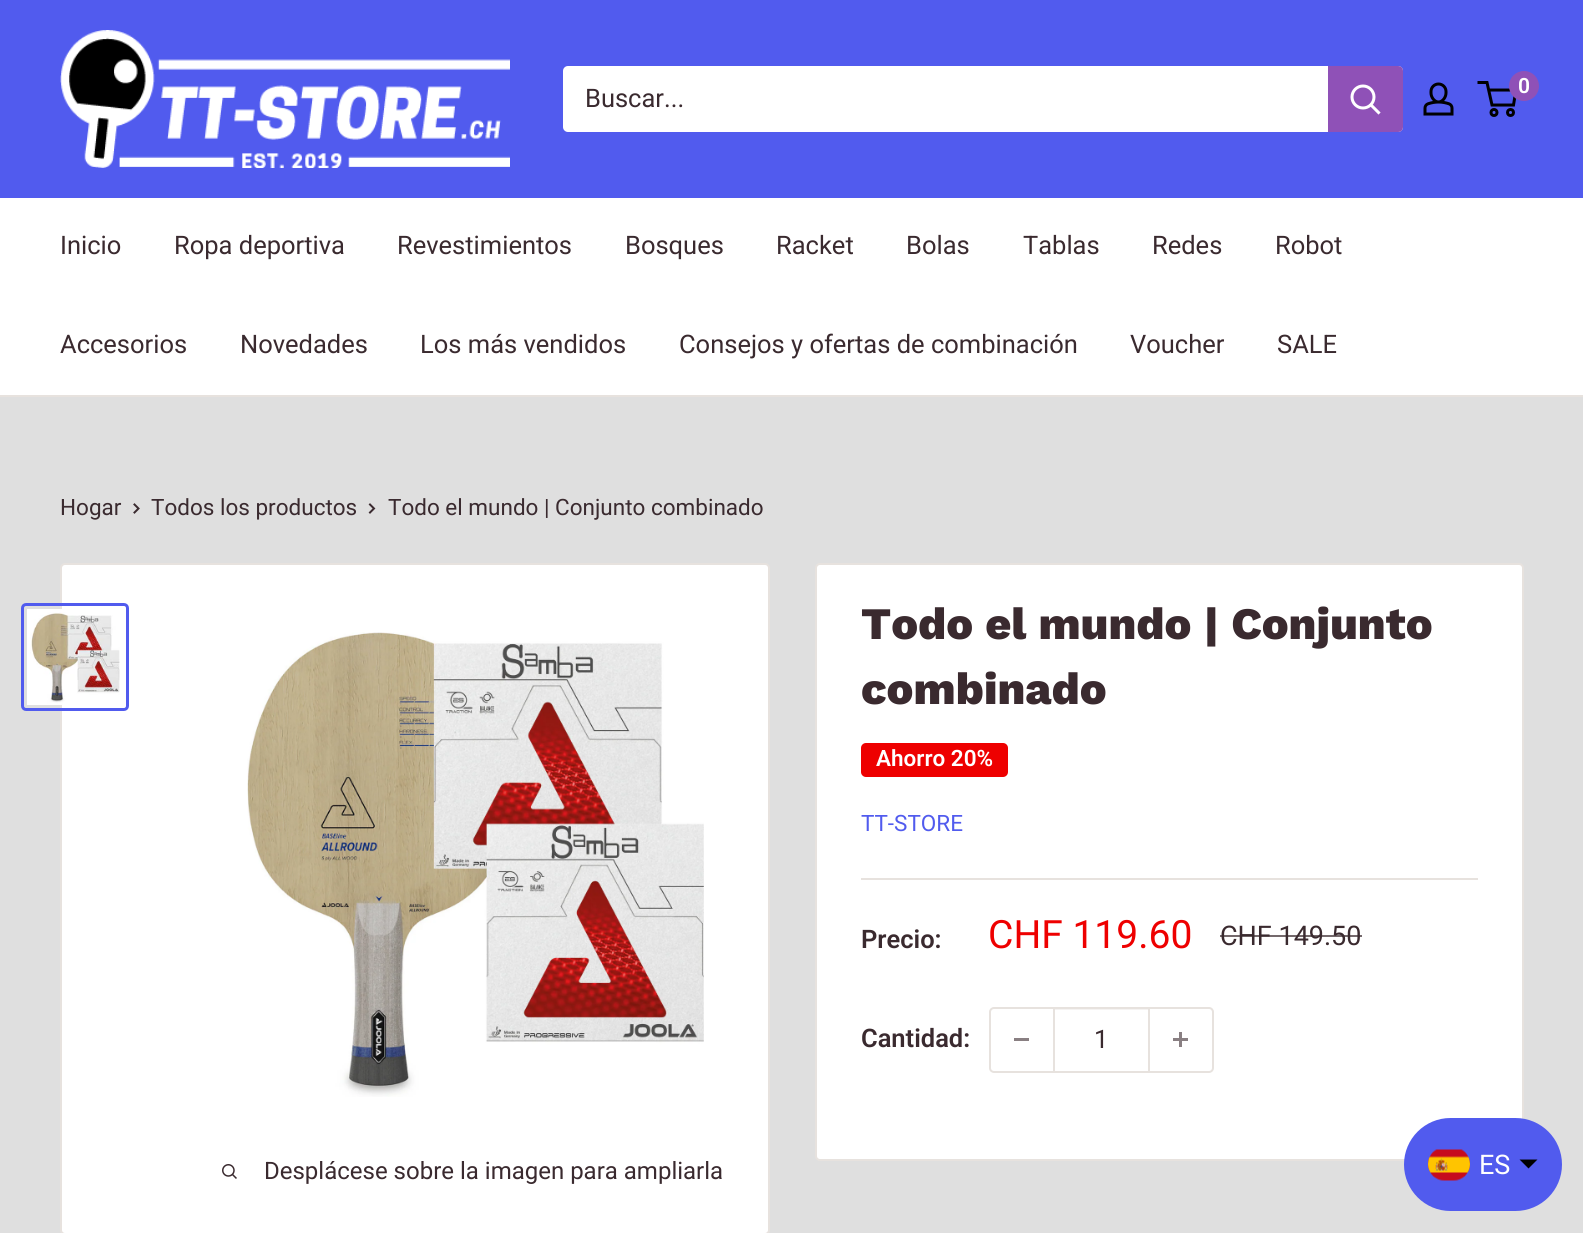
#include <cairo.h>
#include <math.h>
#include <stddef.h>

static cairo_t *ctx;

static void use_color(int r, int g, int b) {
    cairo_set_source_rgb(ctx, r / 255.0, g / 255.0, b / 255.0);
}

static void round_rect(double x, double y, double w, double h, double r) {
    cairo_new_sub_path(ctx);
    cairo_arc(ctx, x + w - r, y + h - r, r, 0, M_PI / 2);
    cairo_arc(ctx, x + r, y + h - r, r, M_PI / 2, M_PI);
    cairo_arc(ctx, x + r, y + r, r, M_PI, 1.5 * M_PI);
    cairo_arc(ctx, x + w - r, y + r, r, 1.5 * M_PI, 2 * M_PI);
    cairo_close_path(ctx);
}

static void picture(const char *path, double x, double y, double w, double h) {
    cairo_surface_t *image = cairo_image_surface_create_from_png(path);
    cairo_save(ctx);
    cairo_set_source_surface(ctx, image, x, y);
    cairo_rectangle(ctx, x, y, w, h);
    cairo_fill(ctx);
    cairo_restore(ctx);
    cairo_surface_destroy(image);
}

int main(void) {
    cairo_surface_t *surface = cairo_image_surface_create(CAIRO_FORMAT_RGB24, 1583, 1233);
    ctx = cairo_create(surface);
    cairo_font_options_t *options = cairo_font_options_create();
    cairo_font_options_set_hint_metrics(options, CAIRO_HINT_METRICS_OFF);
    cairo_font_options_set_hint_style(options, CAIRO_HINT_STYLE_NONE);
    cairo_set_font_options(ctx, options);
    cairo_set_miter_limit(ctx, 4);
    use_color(223, 223, 223);
    cairo_paint(ctx);
    use_color(81, 91, 238);
    cairo_rectangle(ctx, 0, 0, 1583, 198);
    cairo_fill(ctx);
    picture("img1.png", 60, 30, 450, 138);
    picture("img2.png", 1423, 82, 31, 34);
    cairo_arc(ctx, 1494, 112.5, 3, 0, 2 * M_PI);
    use_color(0, 0, 0);
    cairo_set_line_width(ctx, 3);
    cairo_stroke(ctx);
    cairo_arc(ctx, 1510.5, 112.5, 3, 0, 2 * M_PI);
    cairo_stroke(ctx);
    cairo_new_path(ctx);
    cairo_move_to(ctx, 1488.5, 90);
    cairo_line_to(ctx, 1516, 90);
    cairo_line_to(ctx, 1513.5, 105);
    cairo_line_to(ctx, 1492, 105);
    cairo_line_to(ctx, 1487, 82.5);
    cairo_line_to(ctx, 1477.5, 82.5);
    cairo_stroke(ctx);
    use_color(143, 81, 183);
    cairo_arc(ctx, 1524, 86, 15, 0, 2 * M_PI);
    cairo_fill(ctx);
    cairo_select_font_face(ctx, "Roboto SemiBold", CAIRO_FONT_SLANT_NORMAL, CAIRO_FONT_WEIGHT_NORMAL);
    cairo_set_font_size(ctx, 21);
    use_color(255, 255, 255);
    cairo_move_to(ctx, 1518, 93);
    cairo_show_text(ctx, "0");
    round_rect(563, 66, 840, 66, 5);
    cairo_fill(ctx);
    cairo_select_font_face(ctx, "Roboto", CAIRO_FONT_SLANT_NORMAL, CAIRO_FONT_WEIGHT_NORMAL);
    cairo_set_font_size(ctx, 25.5);
    use_color(58, 42, 47);
    cairo_move_to(ctx, 585, 107);
    cairo_show_text(ctx, "Buscar...");
    use_color(143, 81, 183);
    cairo_new_path(ctx);
    cairo_move_to(ctx, 1328, 66);
    cairo_line_to(ctx, 1398, 66);
    cairo_curve_to(ctx, 1401, 66, 1403, 68, 1403, 71);
    cairo_line_to(ctx, 1403, 127);
    cairo_curve_to(ctx, 1403, 130, 1401, 132, 1398, 132);
    cairo_line_to(ctx, 1328, 132);
    cairo_close_path(ctx);
    cairo_fill(ctx);
    cairo_new_path(ctx);
    cairo_move_to(ctx, 1378.5, 112.5);
    cairo_line_to(ctx, 1371, 105);
    use_color(255, 255, 255);
    cairo_set_line_cap(ctx, CAIRO_LINE_CAP_SQUARE);
    cairo_stroke(ctx);
    cairo_arc(ctx, 1363, 97, 11, 0, 2 * M_PI);
    cairo_set_line_cap(ctx, CAIRO_LINE_CAP_BUTT);
    cairo_stroke(ctx);
    cairo_rectangle(ctx, 0, 198, 1583, 197);
    cairo_fill(ctx);
    use_color(231, 226, 222);
    cairo_rectangle(ctx, 0, 395, 1583, 2);
    cairo_fill(ctx);
    use_color(58, 42, 47);
    cairo_move_to(ctx, 60, 254);
    cairo_show_text(ctx, "Inicio");
    cairo_move_to(ctx, 174, 254);
    cairo_show_text(ctx, "Ropa deportiva");
    cairo_move_to(ctx, 397, 254);
    cairo_show_text(ctx, "Revestimientos");
    cairo_move_to(ctx, 625, 254);
    cairo_show_text(ctx, "Bosques");
    cairo_move_to(ctx, 776, 254);
    cairo_show_text(ctx, "Racket");
    cairo_move_to(ctx, 906, 254);
    cairo_show_text(ctx, "Bolas");
    cairo_move_to(ctx, 1023, 254);
    cairo_show_text(ctx, "Tablas");
    cairo_move_to(ctx, 1152, 254);
    cairo_show_text(ctx, "Redes");
    cairo_move_to(ctx, 1275, 254);
    cairo_show_text(ctx, "Robot");
    cairo_move_to(ctx, 60, 353);
    cairo_show_text(ctx, "Accesorios");
    cairo_move_to(ctx, 240, 353);
    cairo_show_text(ctx, "Novedades");
    cairo_move_to(ctx, 420, 353);
    cairo_show_text(ctx, "Los más vendidos");
    cairo_move_to(ctx, 679, 353);
    cairo_show_text(ctx, "Consejos y ofertas de combinación");
    cairo_move_to(ctx, 1130, 353);
    cairo_show_text(ctx, "Voucher");
    cairo_move_to(ctx, 1277, 353);
    cairo_show_text(ctx, "SALE");
    cairo_set_font_size(ctx, 22.5);
    cairo_move_to(ctx, 60, 515);
    cairo_show_text(ctx, "Hogar");
    cairo_new_path(ctx);
    cairo_move_to(ctx, 134.5, 504.5);
    cairo_line_to(ctx, 138.5, 508.5);
    cairo_line_to(ctx, 134.5, 512.5);
    cairo_set_line_width(ctx, 2);
    cairo_set_line_cap(ctx, CAIRO_LINE_CAP_SQUARE);
    cairo_stroke(ctx);
    cairo_move_to(ctx, 151, 515);
    cairo_show_text(ctx, "Todos los productos");
    cairo_new_path(ctx);
    cairo_move_to(ctx, 370, 504.5);
    cairo_line_to(ctx, 374, 508.5);
    cairo_line_to(ctx, 370, 512.5);
    cairo_stroke(ctx);
    cairo_move_to(ctx, 388, 515);
    cairo_show_text(ctx, "Todo el mundo | Conjunto combinado");
    use_color(255, 255, 255);
    round_rect(816, 564, 707, 596, 4);
    cairo_fill_preserve(ctx);
    use_color(231, 226, 222);
    cairo_set_line_cap(ctx, CAIRO_LINE_CAP_BUTT);
    cairo_stroke(ctx);
    cairo_select_font_face(ctx, "Work Sans ExtraBold", CAIRO_FONT_SLANT_NORMAL, CAIRO_FONT_WEIGHT_NORMAL);
    cairo_set_font_size(ctx, 45);
    use_color(58, 42, 47);
    cairo_move_to(ctx, 861, 639);
    cairo_show_text(ctx, "Todo el mundo | Conjunto");
    cairo_move_to(ctx, 861, 704);
    cairo_show_text(ctx, "combinado");
    use_color(238, 0, 0);
    round_rect(861, 743, 147, 34, 5);
    cairo_fill(ctx);
    cairo_select_font_face(ctx, "Roboto SemiBold", CAIRO_FONT_SLANT_NORMAL, CAIRO_FONT_WEIGHT_NORMAL);
    cairo_set_font_size(ctx, 22.5);
    use_color(255, 255, 255);
    cairo_move_to(ctx, 876, 766);
    cairo_show_text(ctx, "Ahorro 20%");
    cairo_select_font_face(ctx, "Roboto", CAIRO_FONT_SLANT_NORMAL, CAIRO_FONT_WEIGHT_NORMAL);
    use_color(81, 91, 238);
    cairo_move_to(ctx, 861, 831);
    cairo_show_text(ctx, "TT-STORE");
    use_color(231, 226, 222);
    cairo_rectangle(ctx, 861, 878, 617, 2);
    cairo_fill(ctx);
    cairo_select_font_face(ctx, "Roboto SemiBold", CAIRO_FONT_SLANT_NORMAL, CAIRO_FONT_WEIGHT_NORMAL);
    cairo_set_font_size(ctx, 25.5);
    use_color(58, 42, 47);
    cairo_move_to(ctx, 861, 948);
    cairo_show_text(ctx, "Precio:");
    cairo_select_font_face(ctx, "Roboto", CAIRO_FONT_SLANT_NORMAL, CAIRO_FONT_WEIGHT_NORMAL);
    cairo_set_font_size(ctx, 39);
    use_color(238, 0, 0);
    cairo_move_to(ctx, 988, 948);
    cairo_show_text(ctx, "CHF 119.60");
    cairo_set_font_size(ctx, 27);
    use_color(58, 42, 47);
    cairo_move_to(ctx, 1220, 945);
    cairo_show_text(ctx, "CHF 149.50");
    cairo_set_source_rgba(ctx, 0.227, 0.165, 0.184, 0.7);
    cairo_rectangle(ctx, 1220, 935, 142, 2);
    cairo_fill(ctx);
    cairo_select_font_face(ctx, "Roboto SemiBold", CAIRO_FONT_SLANT_NORMAL, CAIRO_FONT_WEIGHT_NORMAL);
    cairo_set_font_size(ctx, 25.5);
    use_color(58, 42, 47);
    cairo_move_to(ctx, 861, 1047);
    cairo_show_text(ctx, "Cantidad:");
    round_rect(990, 1008, 223, 64, 4);
    use_color(231, 226, 222);
    cairo_stroke(ctx);
    use_color(137, 127, 130);
    cairo_rectangle(ctx, 1014, 1038, 15, 3);
    cairo_fill(ctx);
    cairo_set_source_rgba(ctx, 0.906, 0.886, 0.871, 0.4);
    cairo_rectangle(ctx, 1055, 1009, 93, 1);
    cairo_fill(ctx);
    use_color(231, 226, 222);
    cairo_rectangle(ctx, 1148, 1008, 2, 63);
    cairo_fill(ctx);
    cairo_rectangle(ctx, 1053, 1008, 2, 63);
    cairo_fill(ctx);
    cairo_select_font_face(ctx, "Roboto", CAIRO_FONT_SLANT_NORMAL, CAIRO_FONT_WEIGHT_NORMAL);
    use_color(58, 42, 47);
    cairo_move_to(ctx, 1094, 1048);
    cairo_show_text(ctx, "1");
    picture("img3.png", 1173, 1032, 15, 15);
    use_color(255, 255, 255);
    round_rect(61, 564, 708, 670, 4);
    cairo_fill_preserve(ctx);
    use_color(231, 226, 222);
    cairo_stroke(ctx);
    round_rect(22.5, 604.5, 105, 105, 3.5);
    use_color(81, 91, 238);
    cairo_set_line_width(ctx, 3);
    cairo_stroke(ctx);
    picture("img4.png", 27, 609, 93, 96);
    picture("img5.png", 247, 632, 457, 465);
    picture("img6.png", 222, 1164, 15, 15);
    cairo_set_font_size(ctx, 24);
    use_color(58, 42, 47);
    cairo_move_to(ctx, 264, 1179);
    cairo_show_text(ctx, "Desplácese sobre la imagen para ampliarla");
    use_color(81, 91, 238);
    round_rect(1404, 1118, 158, 93, 46.5);
    cairo_fill(ctx);
    picture("img7.png", 1428, 1149, 42, 32);
    cairo_set_font_size(ctx, 27);
    use_color(255, 255, 255);
    cairo_move_to(ctx, 1479, 1174);
    cairo_show_text(ctx, "ES");
    use_color(0, 0, 0);
    cairo_new_path(ctx);
    cairo_move_to(ctx, 1519.5, 1159.5);
    cairo_line_to(ctx, 1537.5, 1159.5);
    cairo_line_to(ctx, 1528.5, 1168.5);
    cairo_close_path(ctx);
    cairo_fill(ctx);
    cairo_surface_write_to_png(surface, "result.png");
    cairo_font_options_destroy(options);
    cairo_destroy(ctx);
    cairo_surface_destroy(surface);
    return 0;
}
